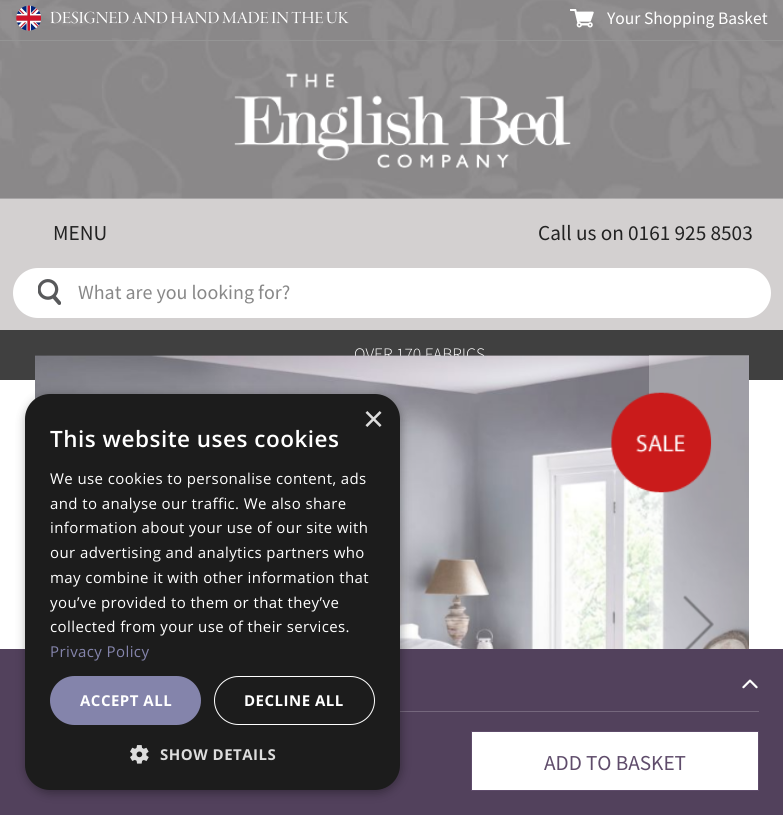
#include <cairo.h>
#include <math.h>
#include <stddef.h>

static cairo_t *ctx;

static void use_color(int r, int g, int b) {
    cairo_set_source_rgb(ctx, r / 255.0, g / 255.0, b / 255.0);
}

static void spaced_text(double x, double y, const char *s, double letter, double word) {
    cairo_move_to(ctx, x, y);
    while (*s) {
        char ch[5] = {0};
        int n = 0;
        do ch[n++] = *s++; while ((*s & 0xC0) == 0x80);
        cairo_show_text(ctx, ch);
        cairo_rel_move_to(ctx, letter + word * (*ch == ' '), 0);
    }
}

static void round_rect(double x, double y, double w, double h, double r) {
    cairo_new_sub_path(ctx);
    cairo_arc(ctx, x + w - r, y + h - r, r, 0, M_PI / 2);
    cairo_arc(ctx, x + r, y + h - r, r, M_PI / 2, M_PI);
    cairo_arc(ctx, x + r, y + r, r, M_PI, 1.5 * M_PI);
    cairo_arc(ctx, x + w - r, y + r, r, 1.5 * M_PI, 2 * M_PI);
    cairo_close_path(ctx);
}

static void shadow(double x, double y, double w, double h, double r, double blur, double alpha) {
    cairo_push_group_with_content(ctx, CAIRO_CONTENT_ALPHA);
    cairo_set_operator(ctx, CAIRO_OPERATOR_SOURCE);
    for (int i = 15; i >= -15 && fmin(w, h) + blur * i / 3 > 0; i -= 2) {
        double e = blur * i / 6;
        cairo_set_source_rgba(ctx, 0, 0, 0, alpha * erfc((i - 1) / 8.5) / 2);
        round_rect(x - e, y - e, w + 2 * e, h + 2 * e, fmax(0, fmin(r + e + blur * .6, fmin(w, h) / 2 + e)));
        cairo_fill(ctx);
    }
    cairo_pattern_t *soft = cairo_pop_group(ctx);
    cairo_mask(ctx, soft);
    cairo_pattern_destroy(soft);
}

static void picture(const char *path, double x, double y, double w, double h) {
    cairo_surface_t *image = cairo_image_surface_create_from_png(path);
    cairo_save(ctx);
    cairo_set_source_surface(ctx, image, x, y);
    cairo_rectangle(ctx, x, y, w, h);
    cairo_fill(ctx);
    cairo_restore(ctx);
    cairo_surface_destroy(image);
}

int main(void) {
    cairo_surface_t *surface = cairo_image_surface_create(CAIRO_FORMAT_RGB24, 783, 815);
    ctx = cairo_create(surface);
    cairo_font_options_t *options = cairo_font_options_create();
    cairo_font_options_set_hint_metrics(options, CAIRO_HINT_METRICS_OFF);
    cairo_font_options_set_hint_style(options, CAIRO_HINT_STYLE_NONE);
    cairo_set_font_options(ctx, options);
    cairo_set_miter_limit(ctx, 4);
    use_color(255, 255, 255);
    cairo_paint(ctx);
    picture("img1.png", 0, 0, 783, 199);
    use_color(149, 149, 149);
    cairo_rectangle(ctx, 0, 40, 783, 1);
    cairo_fill(ctx);
    picture("img2.png", 16, 5, 25, 26);
    cairo_select_font_face(ctx, "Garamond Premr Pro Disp", CAIRO_FONT_SLANT_NORMAL, CAIRO_FONT_WEIGHT_NORMAL);
    cairo_set_font_size(ctx, 17.5);
    use_color(255, 255, 255);
    cairo_move_to(ctx, 50, 23);
    cairo_show_text(ctx, "DESIGNED AND HAND MADE IN THE UK");
    picture("img3.png", 570, 9, 24, 19);
    cairo_select_font_face(ctx, "Source Sans Pro", CAIRO_FONT_SLANT_NORMAL, CAIRO_FONT_WEIGHT_NORMAL);
    cairo_move_to(ctx, 607, 24);
    cairo_show_text(ctx, "Your Shopping Basket");
    picture("img4.png", 234, 73, 337, 95);
    use_color(211, 208, 208);
    cairo_rectangle(ctx, 0, 199, 783, 131);
    cairo_fill(ctx);
    cairo_set_font_size(ctx, 21.25);
    use_color(34, 34, 34);
    cairo_move_to(ctx, 53, 240);
    cairo_show_text(ctx, "MENU");
    cairo_move_to(ctx, 538, 240);
    cairo_show_text(ctx, "Call us on 0161 925 8503");
    use_color(255, 255, 255);
    round_rect(13, 268, 758, 50, 25);
    cairo_fill(ctx);
    picture("img5.png", 38, 279, 23, 26);
    cairo_set_font_size(ctx, 20);
    use_color(136, 136, 136);
    cairo_move_to(ctx, 78, 299);
    cairo_show_text(ctx, "What are you looking for?");
    use_color(64, 64, 64);
    cairo_rectangle(ctx, 0, 330, 783, 50);
    cairo_fill(ctx);
    cairo_select_font_face(ctx, "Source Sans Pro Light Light", CAIRO_FONT_SLANT_NORMAL, CAIRO_FONT_WEIGHT_NORMAL);
    cairo_set_font_size(ctx, 17.5);
    use_color(255, 255, 255);
    cairo_move_to(ctx, 354, 360);
    cairo_show_text(ctx, "OVER 170 FABRICS");
    picture("img6.png", 35, 355, 714, 294);
    cairo_set_source_rgba(ctx, 1, 1, 1, 0.3);
    cairo_rectangle(ctx, 649, 355, 100, 294);
    cairo_fill(ctx);
    picture("img7.png", 683, 595, 31, 54);
    picture("img8.png", 611, 392, 101, 101);
    use_color(82, 65, 92);
    cairo_rectangle(ctx, 0, 649, 783, 166);
    cairo_fill(ctx);
    use_color(117, 103, 125);
    cairo_rectangle(ctx, 400, 711, 359, 1);
    cairo_fill(ctx);
    picture("img9.png", 742, 679, 16, 10);
    use_color(255, 255, 255);
    cairo_rectangle(ctx, 471.5, 731.5, 287, 59);
    cairo_fill_preserve(ctx);
    use_color(95, 76, 107);
    cairo_set_line_width(ctx, 1);
    cairo_stroke(ctx);
    cairo_select_font_face(ctx, "Source Sans Pro", CAIRO_FONT_SLANT_NORMAL, CAIRO_FONT_WEIGHT_NORMAL);
    cairo_set_font_size(ctx, 21.25);
    cairo_move_to(ctx, 544, 770);
    cairo_show_text(ctx, "ADD TO BASKET");
    use_color(0, 0, 0);
    shadow(26, 396, 375, 397, 25, 5, 0.35);
    use_color(28, 28, 28);
    round_rect(25, 394, 375, 396, 25);
    cairo_fill(ctx);
    cairo_select_font_face(ctx, "Liberation Sans", CAIRO_FONT_SLANT_NORMAL, CAIRO_FONT_WEIGHT_NORMAL);
    cairo_set_font_size(ctx, 36);
    use_color(221, 221, 221);
    cairo_move_to(ctx, 363, 431);
    cairo_show_text(ctx, "×");
    cairo_select_font_face(ctx, "Open Sans SemiBold", CAIRO_FONT_SLANT_NORMAL, CAIRO_FONT_WEIGHT_NORMAL);
    cairo_set_font_size(ctx, 22.5);
    use_color(255, 255, 255);
    spaced_text(50, 447, "This website uses cookies", 0.5, 0);
    cairo_select_font_face(ctx, "Open Sans", CAIRO_FONT_SLANT_NORMAL, CAIRO_FONT_WEIGHT_NORMAL);
    cairo_set_font_size(ctx, 15);
    spaced_text(50, 484, "We use cookies to personalise content, ads", 0.4, 0);
    spaced_text(50, 509, "and to analyse our traffic. We also share", 0.4, 0);
    spaced_text(50, 533, "information about your use of our site with", 0.4, 0);
    spaced_text(50, 558, "our advertising and analytics partners who", 0.4, 0);
    spaced_text(50, 583, "may combine it with other information that", 0.4, 0);
    spaced_text(50, 608, "you’ve provided to them or that they’ve", 0.4, 0);
    spaced_text(50, 632, "collected from your use of their services.", 0.4, 0);
    use_color(132, 132, 171);
    spaced_text(50, 657, "Privacy Policy", 0.4, 0);
    round_rect(50, 676, 151, 49, 24.5);
    cairo_fill(ctx);
    cairo_select_font_face(ctx, "Open Sans", CAIRO_FONT_SLANT_NORMAL, CAIRO_FONT_WEIGHT_BOLD);
    use_color(255, 255, 255);
    spaced_text(80, 706, "ACCEPT ALL", 0.5, 0);
    round_rect(214.5, 676.5, 160, 48, 24);
    cairo_stroke(ctx);
    spaced_text(244, 706, "DECLINE ALL", 0.5, 0);
    picture("img10.png", 130, 745, 19, 19);
    use_color(221, 221, 221);
    spaced_text(160, 760, "SHOW DETAILS", 0.5, 0);
    cairo_surface_write_to_png(surface, "result.png");
    cairo_font_options_destroy(options);
    cairo_destroy(ctx);
    cairo_surface_destroy(surface);
    return 0;
}
